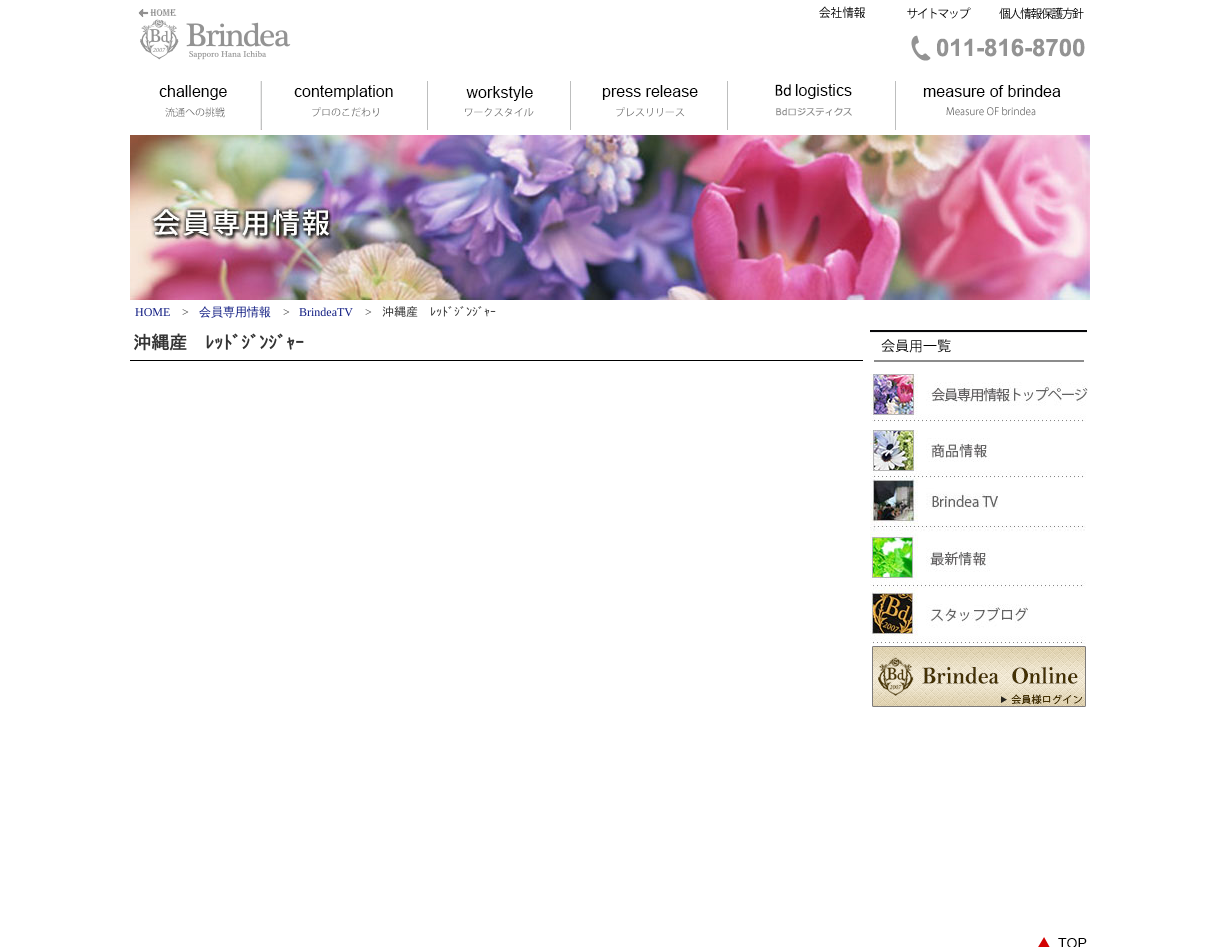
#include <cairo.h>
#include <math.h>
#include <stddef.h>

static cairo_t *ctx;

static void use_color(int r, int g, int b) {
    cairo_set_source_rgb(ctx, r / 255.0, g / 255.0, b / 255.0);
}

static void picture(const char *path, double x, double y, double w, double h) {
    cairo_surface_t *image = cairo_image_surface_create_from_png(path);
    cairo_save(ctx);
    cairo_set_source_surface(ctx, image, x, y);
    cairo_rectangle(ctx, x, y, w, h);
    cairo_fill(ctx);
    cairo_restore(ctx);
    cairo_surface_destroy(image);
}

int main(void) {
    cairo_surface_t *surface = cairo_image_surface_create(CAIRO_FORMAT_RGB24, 1219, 947);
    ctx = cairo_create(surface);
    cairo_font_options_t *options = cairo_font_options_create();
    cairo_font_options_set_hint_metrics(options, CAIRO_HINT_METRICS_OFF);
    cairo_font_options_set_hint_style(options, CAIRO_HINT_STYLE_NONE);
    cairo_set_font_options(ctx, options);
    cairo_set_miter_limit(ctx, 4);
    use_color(255, 255, 255);
    cairo_paint(ctx);
    picture("img1.png", 138, 9, 153, 51);
    picture("img2.png", 819, 6, 46, 12);
    picture("img3.png", 907, 7, 64, 12);
    picture("img4.png", 999, 7, 85, 13);
    picture("img5.png", 911, 35, 174, 26);
    picture("img6.png", 159, 81, 103, 49);
    picture("img7.png", 294, 81, 134, 49);
    picture("img8.png", 465, 81, 106, 49);
    picture("img9.png", 602, 81, 126, 49);
    picture("img10.png", 775, 81, 121, 49);
    picture("img11.png", 923, 85, 138, 31);
    picture("img12.png", 130, 135, 960, 165);
    cairo_select_font_face(ctx, "Liberation Serif", CAIRO_FONT_SLANT_NORMAL, CAIRO_FONT_WEIGHT_NORMAL);
    cairo_set_font_size(ctx, 12);
    use_color(14, 26, 129);
    cairo_move_to(ctx, 135, 316);
    cairo_show_text(ctx, "HOME");
    use_color(51, 51, 51);
    cairo_move_to(ctx, 182, 316);
    cairo_show_text(ctx, ">");
    cairo_select_font_face(ctx, "WenQuanYi Zen Hei Medium", CAIRO_FONT_SLANT_NORMAL, CAIRO_FONT_WEIGHT_NORMAL);
    use_color(14, 26, 129);
    cairo_move_to(ctx, 199, 316);
    cairo_show_text(ctx, "会員専用情報");
    cairo_select_font_face(ctx, "Liberation Serif", CAIRO_FONT_SLANT_NORMAL, CAIRO_FONT_WEIGHT_NORMAL);
    use_color(51, 51, 51);
    cairo_move_to(ctx, 283, 316);
    cairo_show_text(ctx, ">");
    use_color(14, 26, 129);
    cairo_move_to(ctx, 299, 316);
    cairo_show_text(ctx, "BrindeaTV");
    use_color(51, 51, 51);
    cairo_move_to(ctx, 365, 316);
    cairo_show_text(ctx, ">");
    cairo_select_font_face(ctx, "IPAPGothic", CAIRO_FONT_SLANT_NORMAL, CAIRO_FONT_WEIGHT_NORMAL);
    cairo_move_to(ctx, 382, 316);
    cairo_show_text(ctx, "沖縄産　ﾚｯﾄﾞｼﾞﾝｼﾞｬｰ");
    use_color(0, 0, 0);
    cairo_rectangle(ctx, 130, 360, 733, 1);
    cairo_fill(ctx);
    cairo_select_font_face(ctx, "IPAPGothic", CAIRO_FONT_SLANT_NORMAL, CAIRO_FONT_WEIGHT_BOLD);
    cairo_set_font_size(ctx, 18);
    use_color(51, 51, 51);
    cairo_move_to(ctx, 133, 349);
    cairo_show_text(ctx, "沖縄産　ﾚｯﾄﾞｼﾞﾝｼﾞｬｰ");
    picture("img13.png", 870, 330, 217, 32);
    picture("img14.png", 870, 374, 218, 48);
    picture("img15.png", 870, 430, 216, 48);
    picture("img16.png", 870, 478, 216, 54);
    picture("img17.png", 870, 532, 216, 56);
    picture("img18.png", 870, 588, 216, 56);
    picture("img19.png", 872, 646, 214, 61);
    picture("img20.png", 1038, 937, 49, 10);
    cairo_surface_write_to_png(surface, "result.png");
    cairo_font_options_destroy(options);
    cairo_destroy(ctx);
    cairo_surface_destroy(surface);
    return 0;
}
